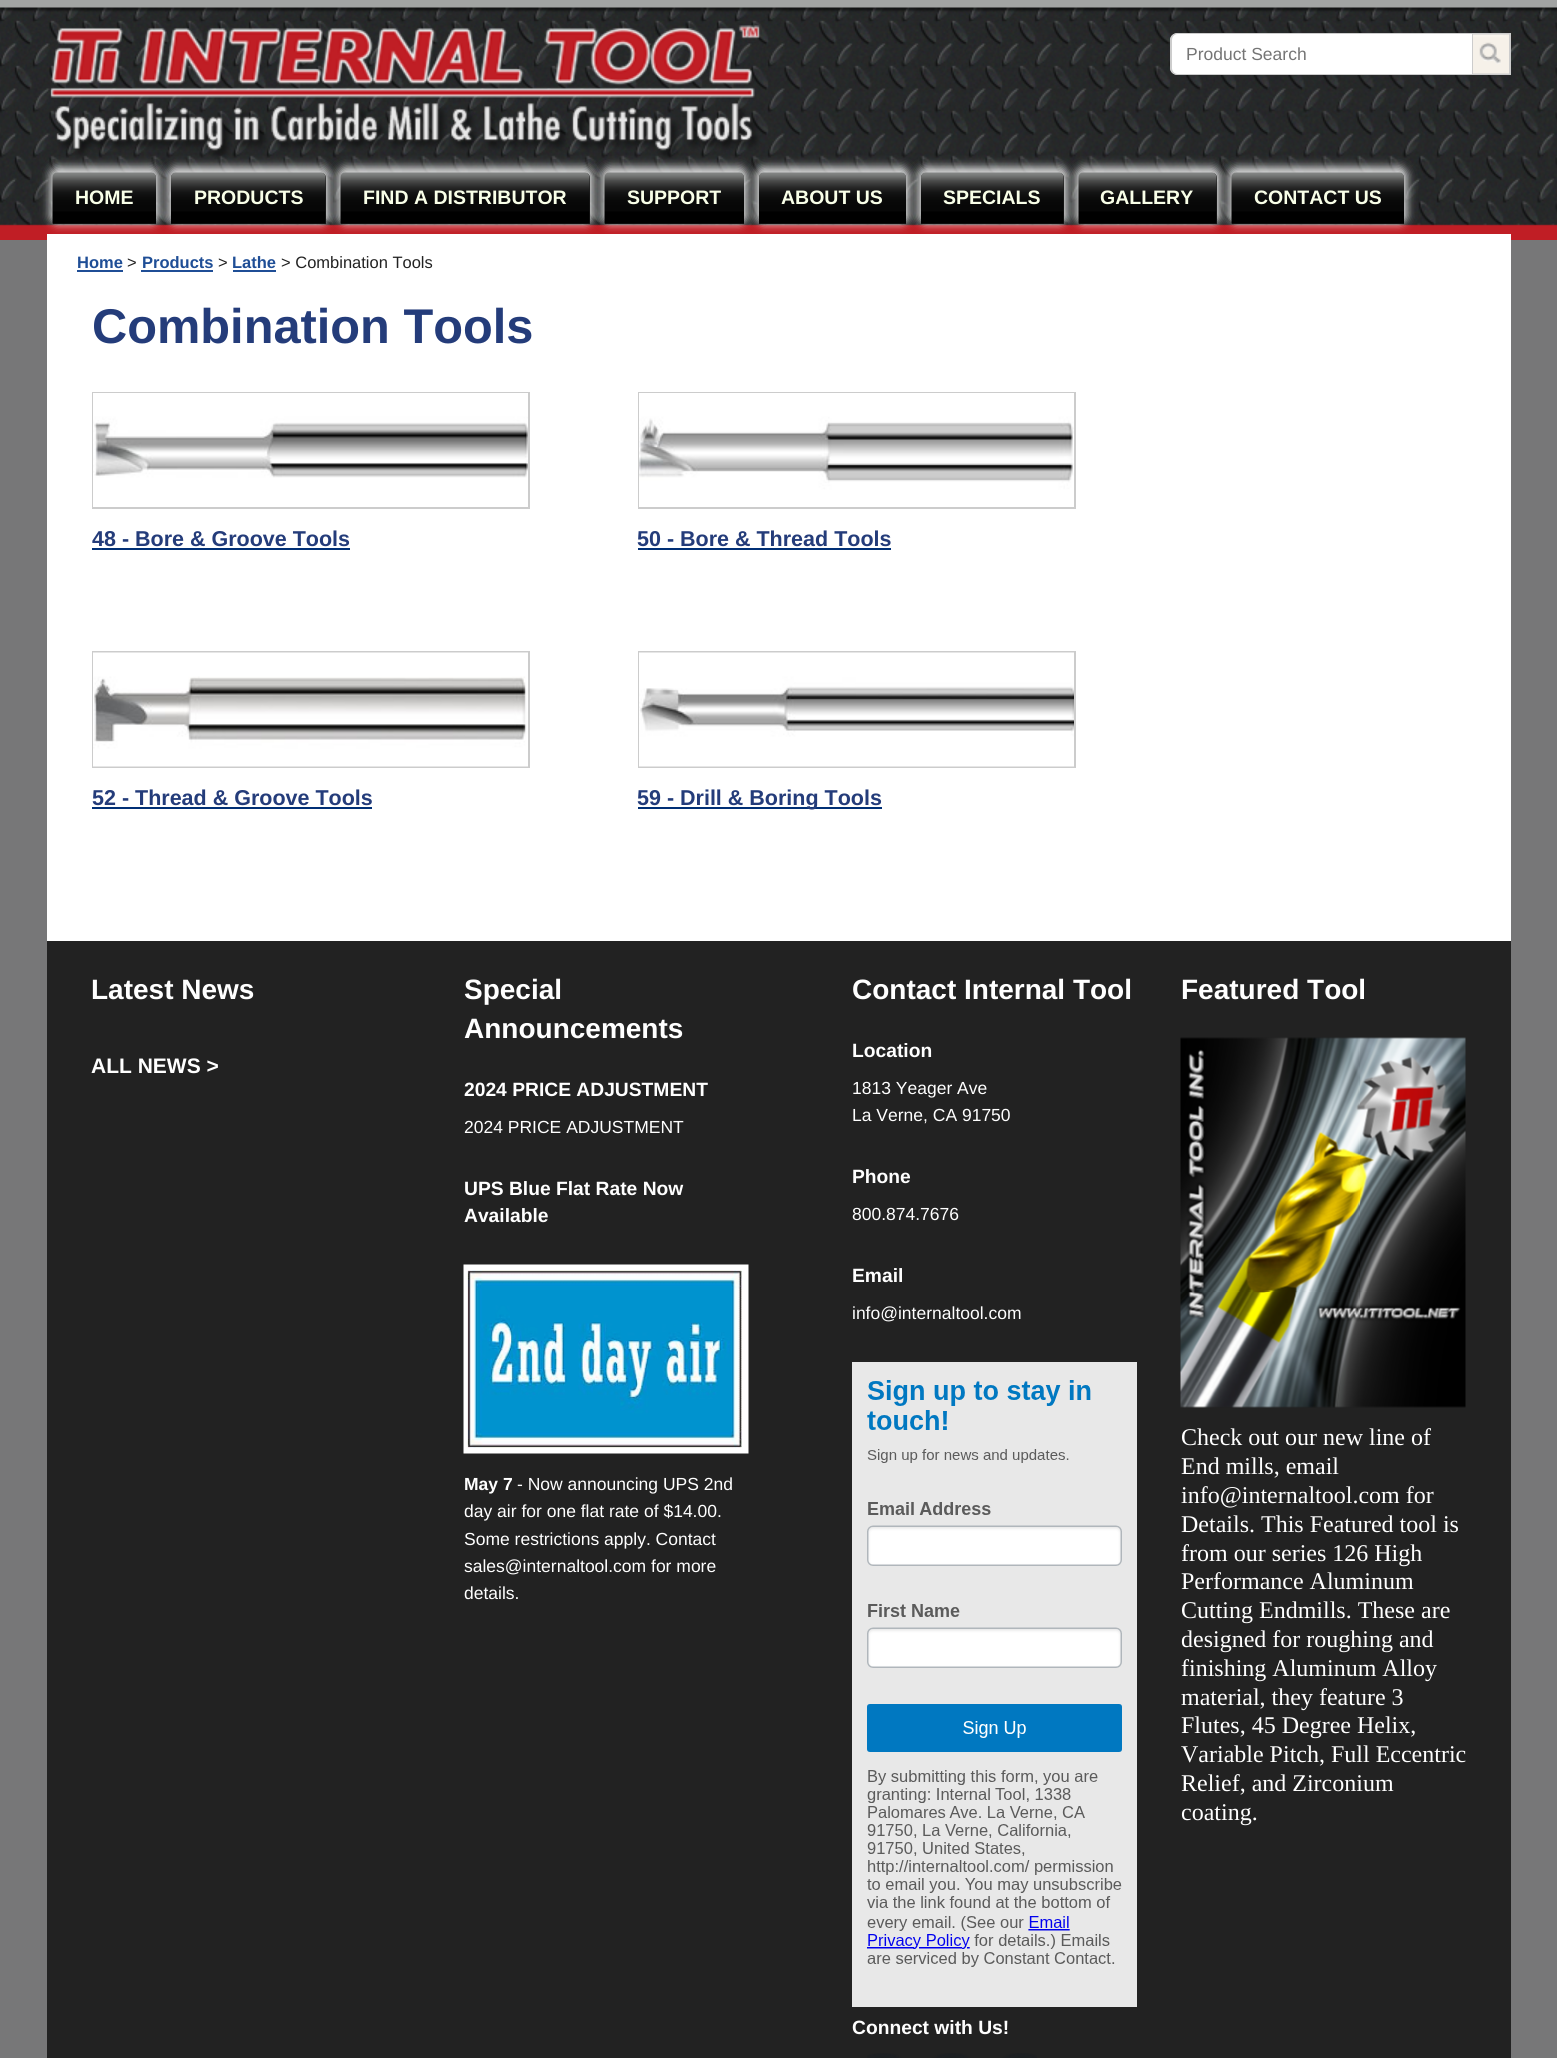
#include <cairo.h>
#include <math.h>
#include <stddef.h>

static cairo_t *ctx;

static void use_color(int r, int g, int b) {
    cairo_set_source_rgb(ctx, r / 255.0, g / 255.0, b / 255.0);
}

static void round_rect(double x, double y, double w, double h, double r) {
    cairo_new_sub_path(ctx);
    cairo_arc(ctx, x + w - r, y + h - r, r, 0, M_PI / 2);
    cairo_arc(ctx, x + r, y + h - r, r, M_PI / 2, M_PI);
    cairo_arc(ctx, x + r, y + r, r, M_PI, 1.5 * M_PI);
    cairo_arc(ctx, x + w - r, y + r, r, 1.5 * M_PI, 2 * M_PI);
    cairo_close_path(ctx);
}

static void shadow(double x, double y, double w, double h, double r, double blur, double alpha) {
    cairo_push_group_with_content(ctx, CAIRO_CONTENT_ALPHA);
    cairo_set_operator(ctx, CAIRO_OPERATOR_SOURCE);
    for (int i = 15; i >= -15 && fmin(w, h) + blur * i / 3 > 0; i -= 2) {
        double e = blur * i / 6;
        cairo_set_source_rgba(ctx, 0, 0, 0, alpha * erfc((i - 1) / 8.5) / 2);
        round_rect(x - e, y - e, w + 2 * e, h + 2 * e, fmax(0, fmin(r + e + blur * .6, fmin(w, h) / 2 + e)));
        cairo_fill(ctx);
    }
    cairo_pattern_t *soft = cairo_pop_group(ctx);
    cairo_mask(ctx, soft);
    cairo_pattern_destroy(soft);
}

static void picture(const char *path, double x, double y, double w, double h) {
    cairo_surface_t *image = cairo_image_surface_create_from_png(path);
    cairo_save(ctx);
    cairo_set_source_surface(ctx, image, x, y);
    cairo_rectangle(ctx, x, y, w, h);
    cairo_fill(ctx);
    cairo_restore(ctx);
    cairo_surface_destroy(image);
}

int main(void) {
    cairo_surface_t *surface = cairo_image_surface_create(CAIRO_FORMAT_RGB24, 1557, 2058);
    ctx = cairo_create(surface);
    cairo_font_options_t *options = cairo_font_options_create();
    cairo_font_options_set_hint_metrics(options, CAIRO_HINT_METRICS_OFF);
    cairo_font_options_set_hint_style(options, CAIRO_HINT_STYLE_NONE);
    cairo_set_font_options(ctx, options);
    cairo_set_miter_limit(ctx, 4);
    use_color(119, 119, 120);
    cairo_paint(ctx);
    picture("img1.png", 0, 0, 1557, 240);
    picture("img2.png", 50, 25, 711, 134);
    use_color(255, 255, 255);
    cairo_new_path(ctx);
    cairo_move_to(ctx, 1178, 33);
    cairo_line_to(ctx, 1472, 33);
    cairo_line_to(ctx, 1472, 75);
    cairo_line_to(ctx, 1178, 75);
    cairo_curve_to(ctx, 1173.5, 75, 1170, 71.5, 1170, 67);
    cairo_line_to(ctx, 1170, 41);
    cairo_curve_to(ctx, 1170, 36.5, 1173.5, 33, 1178, 33);
    cairo_close_path(ctx);
    cairo_fill(ctx);
    use_color(204, 204, 204);
    cairo_set_fill_rule(ctx, CAIRO_FILL_RULE_EVEN_ODD);
    cairo_new_path(ctx);
    cairo_move_to(ctx, 1178, 33);
    cairo_line_to(ctx, 1472, 33);
    cairo_line_to(ctx, 1472, 75);
    cairo_line_to(ctx, 1178, 75);
    cairo_curve_to(ctx, 1173, 75, 1170, 72, 1170, 68);
    cairo_line_to(ctx, 1170, 40);
    cairo_curve_to(ctx, 1170, 36, 1173, 33, 1178, 33);
    cairo_close_path(ctx);
    cairo_move_to(ctx, 1178, 34);
    cairo_line_to(ctx, 1472, 34);
    cairo_line_to(ctx, 1472, 74);
    cairo_line_to(ctx, 1178, 74);
    cairo_curve_to(ctx, 1174, 74, 1172, 71, 1172, 68);
    cairo_line_to(ctx, 1172, 40);
    cairo_curve_to(ctx, 1172, 37, 1174, 34, 1178, 34);
    cairo_close_path(ctx);
    cairo_fill(ctx);
    cairo_select_font_face(ctx, "Liberation Sans", CAIRO_FONT_SLANT_NORMAL, CAIRO_FONT_WEIGHT_NORMAL);
    cairo_set_font_size(ctx, 17.5);
    use_color(117, 117, 117);
    cairo_move_to(ctx, 1186, 60);
    cairo_show_text(ctx, "Product Search");
    cairo_rectangle(ctx, 1473, 34, 37, 40);
    use_color(204, 204, 204);
    cairo_stroke(ctx);
    picture("img3.png", 1473, 34, 36, 40);
    use_color(255, 255, 255);
    cairo_rectangle(ctx, 47, 234, 1464, 707);
    cairo_fill(ctx);
    use_color(255, 255, 255);
    shadow(50, 167, 109, 57, 8, 4.5, 0.85);
    use_color(30, 30, 30);
    cairo_new_path(ctx);
    cairo_move_to(ctx, 58, 173);
    cairo_line_to(ctx, 151, 173);
    cairo_curve_to(ctx, 154, 173, 156, 175, 156, 178);
    cairo_line_to(ctx, 156, 224);
    cairo_line_to(ctx, 53, 224);
    cairo_line_to(ctx, 53, 178);
    cairo_curve_to(ctx, 53, 175, 55, 173, 58, 173);
    cairo_close_path(ctx);
    cairo_fill(ctx);
    picture("img4.png", 52, 172, 104, 52);
    cairo_select_font_face(ctx, "Liberation Sans", CAIRO_FONT_SLANT_NORMAL, CAIRO_FONT_WEIGHT_BOLD);
    cairo_set_font_size(ctx, 19.5);
    use_color(249, 255, 232);
    cairo_move_to(ctx, 75, 204);
    cairo_show_text(ctx, "HOME");
    use_color(255, 255, 255);
    shadow(168, 167, 161, 57, 8, 4.5, 0.85);
    use_color(30, 30, 30);
    cairo_new_path(ctx);
    cairo_move_to(ctx, 176, 173);
    cairo_line_to(ctx, 321, 173);
    cairo_curve_to(ctx, 324, 173, 326, 175, 326, 178);
    cairo_line_to(ctx, 326, 224);
    cairo_line_to(ctx, 171, 224);
    cairo_line_to(ctx, 171, 178);
    cairo_curve_to(ctx, 171, 175, 173, 173, 176, 173);
    cairo_close_path(ctx);
    cairo_fill(ctx);
    picture("img5.png", 171, 172, 155, 52);
    use_color(249, 255, 232);
    cairo_move_to(ctx, 194, 204);
    cairo_show_text(ctx, "PRODUCTS");
    use_color(255, 255, 255);
    shadow(338, 167, 255, 57, 8, 4.5, 0.85);
    use_color(30, 30, 30);
    cairo_new_path(ctx);
    cairo_move_to(ctx, 346, 173);
    cairo_line_to(ctx, 585, 173);
    cairo_curve_to(ctx, 588, 173, 590, 175, 590, 178);
    cairo_line_to(ctx, 590, 224);
    cairo_line_to(ctx, 341, 224);
    cairo_line_to(ctx, 341, 178);
    cairo_curve_to(ctx, 341, 175, 343, 173, 346, 173);
    cairo_close_path(ctx);
    cairo_fill(ctx);
    picture("img6.png", 340, 172, 250, 52);
    use_color(249, 255, 232);
    cairo_move_to(ctx, 363, 204);
    cairo_show_text(ctx, "FIND A DISTRIBUTOR");
    use_color(255, 255, 255);
    shadow(602, 167, 145, 57, 8, 4.5, 0.85);
    use_color(30, 30, 30);
    cairo_new_path(ctx);
    cairo_move_to(ctx, 610, 173);
    cairo_line_to(ctx, 739, 173);
    cairo_curve_to(ctx, 742, 173, 744, 175, 744, 178);
    cairo_line_to(ctx, 744, 224);
    cairo_line_to(ctx, 605, 224);
    cairo_line_to(ctx, 605, 178);
    cairo_curve_to(ctx, 605, 175, 607, 173, 610, 173);
    cairo_close_path(ctx);
    cairo_fill(ctx);
    picture("img7.png", 604, 172, 140, 52);
    use_color(249, 255, 232);
    cairo_move_to(ctx, 627, 204);
    cairo_show_text(ctx, "SUPPORT");
    use_color(255, 255, 255);
    shadow(756, 167, 153, 57, 8, 4.5, 0.85);
    use_color(30, 30, 30);
    cairo_new_path(ctx);
    cairo_move_to(ctx, 764, 173);
    cairo_line_to(ctx, 901, 173);
    cairo_curve_to(ctx, 904, 173, 906, 175, 906, 178);
    cairo_line_to(ctx, 906, 224);
    cairo_line_to(ctx, 759, 224);
    cairo_line_to(ctx, 759, 178);
    cairo_curve_to(ctx, 759, 175, 761, 173, 764, 173);
    cairo_close_path(ctx);
    cairo_fill(ctx);
    picture("img8.png", 759, 172, 147, 52);
    use_color(249, 255, 232);
    cairo_move_to(ctx, 781, 204);
    cairo_show_text(ctx, "ABOUT US");
    use_color(255, 255, 255);
    shadow(918, 167, 149, 57, 8, 4.5, 0.85);
    use_color(30, 30, 30);
    cairo_new_path(ctx);
    cairo_move_to(ctx, 926, 173);
    cairo_line_to(ctx, 1059, 173);
    cairo_curve_to(ctx, 1062, 173, 1064, 175, 1064, 178);
    cairo_line_to(ctx, 1064, 224);
    cairo_line_to(ctx, 921, 224);
    cairo_line_to(ctx, 921, 178);
    cairo_curve_to(ctx, 921, 175, 923, 173, 926, 173);
    cairo_close_path(ctx);
    cairo_fill(ctx);
    picture("img9.png", 921, 172, 143, 52);
    use_color(249, 255, 232);
    cairo_move_to(ctx, 943, 204);
    cairo_show_text(ctx, "SPECIALS");
    use_color(255, 255, 255);
    shadow(1076, 167, 144, 57, 8, 4.5, 0.85);
    use_color(30, 30, 30);
    cairo_new_path(ctx);
    cairo_move_to(ctx, 1084, 173);
    cairo_line_to(ctx, 1212, 173);
    cairo_curve_to(ctx, 1215, 173, 1217, 175, 1217, 178);
    cairo_line_to(ctx, 1217, 224);
    cairo_line_to(ctx, 1079, 224);
    cairo_line_to(ctx, 1079, 178);
    cairo_curve_to(ctx, 1079, 175, 1081, 173, 1084, 173);
    cairo_close_path(ctx);
    cairo_fill(ctx);
    picture("img10.png", 1078, 172, 139, 52);
    use_color(249, 255, 232);
    cairo_move_to(ctx, 1100, 204);
    cairo_show_text(ctx, "GALLERY");
    use_color(255, 255, 255);
    shadow(1229, 167, 178, 57, 8, 4.5, 0.85);
    use_color(30, 30, 30);
    cairo_new_path(ctx);
    cairo_move_to(ctx, 1237, 173);
    cairo_line_to(ctx, 1399, 173);
    cairo_curve_to(ctx, 1402, 173, 1404, 175, 1404, 178);
    cairo_line_to(ctx, 1404, 224);
    cairo_line_to(ctx, 1232, 224);
    cairo_line_to(ctx, 1232, 178);
    cairo_curve_to(ctx, 1232, 175, 1234, 173, 1237, 173);
    cairo_close_path(ctx);
    cairo_fill(ctx);
    picture("img11.png", 1231, 172, 173, 52);
    use_color(249, 255, 232);
    cairo_move_to(ctx, 1254, 204);
    cairo_show_text(ctx, "CONTACT US");
    cairo_set_font_size(ctx, 16.5);
    use_color(31, 78, 150);
    cairo_move_to(ctx, 77, 268);
    cairo_show_text(ctx, "Home");
    cairo_rectangle(ctx, 77, 270, 46, 2);
    cairo_fill(ctx);
    cairo_select_font_face(ctx, "Liberation Sans", CAIRO_FONT_SLANT_NORMAL, CAIRO_FONT_WEIGHT_NORMAL);
    use_color(34, 34, 34);
    cairo_move_to(ctx, 127, 268);
    cairo_show_text(ctx, ">");
    cairo_select_font_face(ctx, "Liberation Sans", CAIRO_FONT_SLANT_NORMAL, CAIRO_FONT_WEIGHT_BOLD);
    use_color(31, 78, 150);
    cairo_move_to(ctx, 142, 268);
    cairo_show_text(ctx, "Products");
    cairo_rectangle(ctx, 141, 270, 72, 2);
    cairo_fill(ctx);
    cairo_select_font_face(ctx, "Liberation Sans", CAIRO_FONT_SLANT_NORMAL, CAIRO_FONT_WEIGHT_NORMAL);
    use_color(34, 34, 34);
    cairo_move_to(ctx, 218, 268);
    cairo_show_text(ctx, ">");
    cairo_select_font_face(ctx, "Liberation Sans", CAIRO_FONT_SLANT_NORMAL, CAIRO_FONT_WEIGHT_BOLD);
    use_color(31, 78, 150);
    cairo_move_to(ctx, 232, 268);
    cairo_show_text(ctx, "Lathe");
    cairo_rectangle(ctx, 233, 270, 43, 2);
    cairo_fill(ctx);
    cairo_select_font_face(ctx, "Liberation Sans", CAIRO_FONT_SLANT_NORMAL, CAIRO_FONT_WEIGHT_NORMAL);
    use_color(34, 34, 34);
    cairo_move_to(ctx, 281, 268);
    cairo_show_text(ctx, "> Combination Tools");
    cairo_select_font_face(ctx, "Liberation Sans", CAIRO_FONT_SLANT_NORMAL, CAIRO_FONT_WEIGHT_BOLD);
    cairo_set_font_size(ctx, 48.75);
    use_color(36, 60, 122);
    cairo_move_to(ctx, 92, 343);
    cairo_show_text(ctx, "Combination Tools");
    cairo_rectangle(ctx, 93, 393, 436, 115);
    use_color(204, 204, 204);
    cairo_stroke(ctx);
    picture("img12.png", 93, 393, 435, 114);
    cairo_set_font_size(ctx, 21.5);
    use_color(36, 60, 122);
    cairo_move_to(ctx, 92, 546);
    cairo_show_text(ctx, "48 - Bore & Groove Tools");
    use_color(0, 47, 117);
    cairo_rectangle(ctx, 92, 548, 258, 2);
    cairo_fill(ctx);
    cairo_rectangle(ctx, 639, 393, 436, 115);
    use_color(204, 204, 204);
    cairo_stroke(ctx);
    picture("img13.png", 639, 393, 435, 114);
    use_color(36, 60, 122);
    cairo_move_to(ctx, 637, 546);
    cairo_show_text(ctx, "50 - Bore & Thread Tools");
    use_color(0, 47, 117);
    cairo_rectangle(ctx, 638, 548, 253, 2);
    cairo_fill(ctx);
    cairo_rectangle(ctx, 93, 652, 436, 115);
    use_color(204, 204, 204);
    cairo_stroke(ctx);
    picture("img14.png", 93, 652, 435, 115);
    use_color(36, 60, 122);
    cairo_move_to(ctx, 92, 805);
    cairo_show_text(ctx, "52 - Thread & Groove Tools");
    use_color(0, 47, 117);
    cairo_rectangle(ctx, 92, 807, 280, 2);
    cairo_fill(ctx);
    cairo_rectangle(ctx, 639, 652, 436, 115);
    use_color(204, 204, 204);
    cairo_stroke(ctx);
    picture("img15.png", 639, 652, 435, 115);
    use_color(0, 47, 117);
    cairo_rectangle(ctx, 638, 807, 244, 2);
    cairo_fill(ctx);
    use_color(36, 60, 122);
    cairo_move_to(ctx, 637, 805);
    cairo_show_text(ctx, "59 - Drill & Boring Tools");
    use_color(34, 34, 34);
    cairo_rectangle(ctx, 47, 941, 1464, 1117);
    cairo_fill(ctx);
    cairo_set_font_size(ctx, 28);
    use_color(255, 255, 255);
    cairo_move_to(ctx, 91, 999);
    cairo_show_text(ctx, "Latest News");
    cairo_set_font_size(ctx, 21);
    cairo_move_to(ctx, 91, 1073);
    cairo_show_text(ctx, "ALL NEWS >");
    cairo_set_font_size(ctx, 28);
    cairo_move_to(ctx, 464, 999);
    cairo_show_text(ctx, "Special");
    cairo_move_to(ctx, 464, 1038);
    cairo_show_text(ctx, "Announcements");
    cairo_set_font_size(ctx, 19.25);
    cairo_move_to(ctx, 464, 1096);
    cairo_show_text(ctx, "2024 PRICE ADJUSTMENT");
    cairo_select_font_face(ctx, "Liberation Sans", CAIRO_FONT_SLANT_NORMAL, CAIRO_FONT_WEIGHT_NORMAL);
    cairo_set_font_size(ctx, 17.5);
    cairo_move_to(ctx, 464, 1133);
    cairo_show_text(ctx, "2024 PRICE ADJUSTMENT");
    cairo_select_font_face(ctx, "Liberation Sans", CAIRO_FONT_SLANT_NORMAL, CAIRO_FONT_WEIGHT_BOLD);
    cairo_set_font_size(ctx, 19.25);
    cairo_move_to(ctx, 464, 1195);
    cairo_show_text(ctx, "UPS Blue Flat Rate Now");
    cairo_move_to(ctx, 464, 1222);
    cairo_show_text(ctx, "Available");
    picture("img16.png", 463, 1264, 286, 190);
    cairo_set_font_size(ctx, 17.5);
    cairo_move_to(ctx, 464, 1490);
    cairo_show_text(ctx, "May 7");
    cairo_select_font_face(ctx, "Liberation Sans", CAIRO_FONT_SLANT_NORMAL, CAIRO_FONT_WEIGHT_NORMAL);
    cairo_move_to(ctx, 517, 1490);
    cairo_show_text(ctx, "- Now announcing UPS 2nd");
    cairo_move_to(ctx, 464, 1517);
    cairo_show_text(ctx, "day air for one flat rate of $14.00.");
    cairo_move_to(ctx, 464, 1545);
    cairo_show_text(ctx, "Some restrictions apply. Contact");
    cairo_move_to(ctx, 464, 1572);
    cairo_show_text(ctx, "sales@internaltool.com for more");
    cairo_move_to(ctx, 464, 1599);
    cairo_show_text(ctx, "details.");
    cairo_select_font_face(ctx, "Liberation Sans", CAIRO_FONT_SLANT_NORMAL, CAIRO_FONT_WEIGHT_BOLD);
    cairo_set_font_size(ctx, 28);
    cairo_move_to(ctx, 852, 999);
    cairo_show_text(ctx, "Contact Internal Tool");
    cairo_set_font_size(ctx, 19.25);
    cairo_move_to(ctx, 852, 1057);
    cairo_show_text(ctx, "Location");
    cairo_select_font_face(ctx, "Liberation Sans", CAIRO_FONT_SLANT_NORMAL, CAIRO_FONT_WEIGHT_NORMAL);
    cairo_set_font_size(ctx, 17.5);
    cairo_move_to(ctx, 852, 1094);
    cairo_show_text(ctx, "1813 Yeager Ave");
    cairo_move_to(ctx, 852, 1121);
    cairo_show_text(ctx, "La Verne, CA 91750");
    cairo_select_font_face(ctx, "Liberation Sans", CAIRO_FONT_SLANT_NORMAL, CAIRO_FONT_WEIGHT_BOLD);
    cairo_set_font_size(ctx, 19.25);
    cairo_move_to(ctx, 852, 1183);
    cairo_show_text(ctx, "Phone");
    cairo_select_font_face(ctx, "Liberation Sans", CAIRO_FONT_SLANT_NORMAL, CAIRO_FONT_WEIGHT_NORMAL);
    cairo_set_font_size(ctx, 17.5);
    cairo_move_to(ctx, 852, 1220);
    cairo_show_text(ctx, "800.874.7676");
    cairo_select_font_face(ctx, "Liberation Sans", CAIRO_FONT_SLANT_NORMAL, CAIRO_FONT_WEIGHT_BOLD);
    cairo_set_font_size(ctx, 19.25);
    cairo_move_to(ctx, 852, 1282);
    cairo_show_text(ctx, "Email");
    cairo_select_font_face(ctx, "Liberation Sans", CAIRO_FONT_SLANT_NORMAL, CAIRO_FONT_WEIGHT_NORMAL);
    cairo_set_font_size(ctx, 17.5);
    cairo_move_to(ctx, 852, 1319);
    cairo_show_text(ctx, "info@internaltool.com");
    picture("img17.png", 852, 1362, 285, 645);
    cairo_select_font_face(ctx, "Liberation Sans", CAIRO_FONT_SLANT_NORMAL, CAIRO_FONT_WEIGHT_BOLD);
    cairo_set_font_size(ctx, 19.25);
    cairo_move_to(ctx, 852, 2034);
    cairo_show_text(ctx, "Connect with Us!");
    picture("img18.png", 867, 2053, 170, 5);
    cairo_set_font_size(ctx, 28);
    cairo_move_to(ctx, 1181, 999);
    cairo_show_text(ctx, "Featured Tool");
    picture("img19.png", 1180, 1037, 286, 371);
    cairo_select_font_face(ctx, "Liberation Serif", CAIRO_FONT_SLANT_NORMAL, CAIRO_FONT_WEIGHT_NORMAL);
    cairo_set_font_size(ctx, 24);
    cairo_move_to(ctx, 1181, 1445);
    cairo_show_text(ctx, "Check out our new line of");
    cairo_move_to(ctx, 1181, 1474);
    cairo_show_text(ctx, "End mills, email");
    cairo_move_to(ctx, 1181, 1503);
    cairo_show_text(ctx, "info@internaltool.com for");
    cairo_move_to(ctx, 1181, 1532);
    cairo_show_text(ctx, "Details. This Featured tool is");
    cairo_move_to(ctx, 1181, 1561);
    cairo_show_text(ctx, "from our series 126 High");
    cairo_move_to(ctx, 1181, 1589);
    cairo_show_text(ctx, "Performance Aluminum");
    cairo_move_to(ctx, 1181, 1618);
    cairo_show_text(ctx, "Cutting Endmills. These are");
    cairo_move_to(ctx, 1181, 1647);
    cairo_show_text(ctx, "designed for roughing and");
    cairo_move_to(ctx, 1181, 1676);
    cairo_show_text(ctx, "finishing Aluminum Alloy");
    cairo_move_to(ctx, 1181, 1705);
    cairo_show_text(ctx, "material, they feature 3");
    cairo_move_to(ctx, 1181, 1733);
    cairo_show_text(ctx, "Flutes, 45 Degree Helix,");
    cairo_move_to(ctx, 1181, 1762);
    cairo_show_text(ctx, "Variable Pitch, Full Eccentric");
    cairo_move_to(ctx, 1181, 1791);
    cairo_show_text(ctx, "Relief, and Zirconium");
    cairo_move_to(ctx, 1181, 1820);
    cairo_show_text(ctx, "coating.");
    cairo_surface_write_to_png(surface, "result.png");
    cairo_font_options_destroy(options);
    cairo_destroy(ctx);
    cairo_surface_destroy(surface);
    return 0;
}
